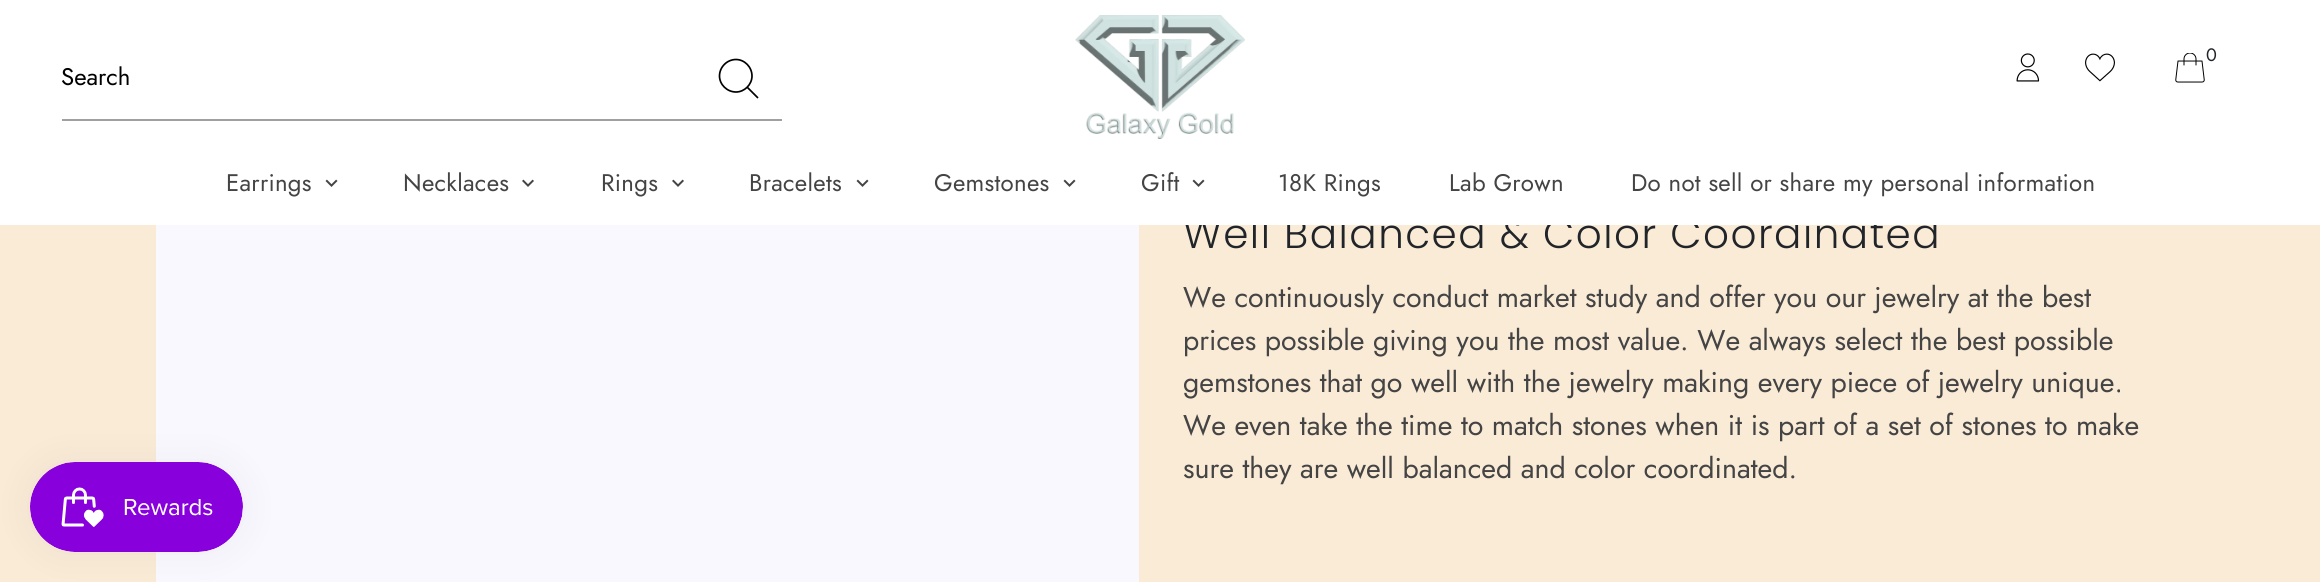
#include <cairo.h>
#include <math.h>
#include <stddef.h>

static cairo_t *ctx;

static void use_color(int r, int g, int b) {
    cairo_set_source_rgb(ctx, r / 255.0, g / 255.0, b / 255.0);
}

static void spaced_text(double x, double y, const char *s, double letter, double word) {
    cairo_move_to(ctx, x, y);
    while (*s) {
        char ch[5] = {0};
        int n = 0;
        do ch[n++] = *s++; while ((*s & 0xC0) == 0x80);
        cairo_show_text(ctx, ch);
        cairo_rel_move_to(ctx, letter + word * (*ch == ' '), 0);
    }
}

static void round_rect(double x, double y, double w, double h, double r) {
    cairo_new_sub_path(ctx);
    cairo_arc(ctx, x + w - r, y + h - r, r, 0, M_PI / 2);
    cairo_arc(ctx, x + r, y + h - r, r, M_PI / 2, M_PI);
    cairo_arc(ctx, x + r, y + r, r, M_PI, 1.5 * M_PI);
    cairo_arc(ctx, x + w - r, y + r, r, 1.5 * M_PI, 2 * M_PI);
    cairo_close_path(ctx);
}

static void shadow(double x, double y, double w, double h, double r, double blur, double alpha) {
    cairo_push_group_with_content(ctx, CAIRO_CONTENT_ALPHA);
    cairo_set_operator(ctx, CAIRO_OPERATOR_SOURCE);
    for (int i = 15; i >= -15 && fmin(w, h) + blur * i / 3 > 0; i -= 2) {
        double e = blur * i / 6;
        cairo_set_source_rgba(ctx, 0, 0, 0, alpha * erfc((i - 1) / 8.5) / 2);
        round_rect(x - e, y - e, w + 2 * e, h + 2 * e, fmax(0, fmin(r + e + blur * .6, fmin(w, h) / 2 + e)));
        cairo_fill(ctx);
    }
    cairo_pattern_t *soft = cairo_pop_group(ctx);
    cairo_mask(ctx, soft);
    cairo_pattern_destroy(soft);
}

static void picture(const char *path, double x, double y, double w, double h) {
    cairo_surface_t *image = cairo_image_surface_create_from_png(path);
    cairo_save(ctx);
    cairo_set_source_surface(ctx, image, x, y);
    cairo_rectangle(ctx, x, y, w, h);
    cairo_fill(ctx);
    cairo_restore(ctx);
    cairo_surface_destroy(image);
}

int main(void) {
    cairo_surface_t *surface = cairo_image_surface_create(CAIRO_FORMAT_RGB24, 2320, 582);
    ctx = cairo_create(surface);
    cairo_font_options_t *options = cairo_font_options_create();
    cairo_font_options_set_hint_metrics(options, CAIRO_HINT_METRICS_OFF);
    cairo_font_options_set_hint_style(options, CAIRO_HINT_STYLE_NONE);
    cairo_set_font_options(ctx, options);
    cairo_set_miter_limit(ctx, 4);
    use_color(250, 235, 215);
    cairo_paint(ctx);
    cairo_select_font_face(ctx, "Poppins Light", CAIRO_FONT_SLANT_NORMAL, CAIRO_FONT_WEIGHT_NORMAL);
    cairo_set_font_size(ctx, 40.5);
    use_color(33, 37, 41);
    spaced_text(1183, 248, "Well Balanced & Color Coordinated", 1.5, 0);
    use_color(255, 255, 255);
    cairo_rectangle(ctx, 0, 0, 2320, 225);
    cairo_fill(ctx);
    picture("img1.png", 1075, 15, 170, 124);
    picture("img2.png", 2016, 53, 24, 29);
    picture("img3.png", 2085, 53, 30, 29);
    picture("img4.png", 2175, 53, 30, 30);
    cairo_select_font_face(ctx, "Jost", CAIRO_FONT_SLANT_NORMAL, CAIRO_FONT_WEIGHT_NORMAL);
    cairo_set_font_size(ctx, 18);
    use_color(33, 37, 41);
    cairo_move_to(ctx, 2206, 61);
    cairo_show_text(ctx, "0");
    use_color(160, 160, 160);
    cairo_rectangle(ctx, 62, 119, 720, 2);
    cairo_fill(ctx);
    cairo_set_font_size(ctx, 24);
    use_color(0, 0, 0);
    cairo_move_to(ctx, 61, 85);
    cairo_show_text(ctx, "Search");
    cairo_new_path(ctx);
    cairo_move_to(ctx, 752, 76);
    cairo_curve_to(ctx, 752, 84.5, 744.5, 92, 736, 92);
    cairo_curve_to(ctx, 727, 92, 719.5, 84.5, 719.5, 76);
    cairo_curve_to(ctx, 719.5, 67, 727, 59.5, 736, 59.5);
    cairo_curve_to(ctx, 744.5, 59.5, 752, 67, 752, 76);
    cairo_close_path(ctx);
    cairo_move_to(ctx, 758, 98);
    cairo_line_to(ctx, 747.5, 87.5);
    cairo_set_line_width(ctx, 1.7);
    cairo_stroke(ctx);
    use_color(68, 68, 68);
    spaced_text(226, 191, "Earrings", 0.3, 0);
    picture("img5.png", 325, 179, 13, 8);
    spaced_text(403, 191, "Necklaces", 0.3, 0);
    picture("img6.png", 522, 179, 12, 8);
    spaced_text(601, 191, "Rings", 0.3, 0);
    picture("img6.png", 672, 179, 12, 8);
    spaced_text(749, 191, "Bracelets", 0.3, 0);
    picture("img5.png", 856, 179, 13, 8);
    spaced_text(934, 191, "Gemstones", 0.3, 0);
    picture("img5.png", 1063, 179, 13, 8);
    spaced_text(1141, 191, "Gift", 0.3, 0);
    picture("img5.png", 1192, 179, 13, 8);
    spaced_text(1278, 191, "18K Rings", 0.3, 0);
    spaced_text(1449, 191, "Lab Grown", 0.3, 0);
    spaced_text(1631, 191, "Do not sell or share my personal information", 0.3, 0);
    use_color(250, 248, 255);
    cairo_rectangle(ctx, 156, 225, 983, 357);
    cairo_fill(ctx);
    cairo_set_font_size(ctx, 28.5);
    use_color(68, 68, 68);
    cairo_move_to(ctx, 1183, 307);
    cairo_show_text(ctx, "We continuously conduct market study and offer you our jewelry at the best");
    cairo_move_to(ctx, 1183, 350);
    cairo_show_text(ctx, "prices possible giving you the most value. We always select the best possible");
    cairo_move_to(ctx, 1183, 392);
    cairo_show_text(ctx, "gemstones that go well with the jewelry making every piece of jewelry unique.");
    cairo_move_to(ctx, 1183, 435);
    cairo_show_text(ctx, "We even take the time to match stones when it is part of a set of stones to make");
    cairo_move_to(ctx, 1183, 478);
    cairo_show_text(ctx, "sure they are well balanced and color coordinated.");
    use_color(0, 0, 0);
    shadow(30, 462, 213, 90, 45, 19, 0.05);
    picture("img7.png", 30, 462, 213, 90);
    cairo_surface_write_to_png(surface, "result.png");
    cairo_font_options_destroy(options);
    cairo_destroy(ctx);
    cairo_surface_destroy(surface);
    return 0;
}
